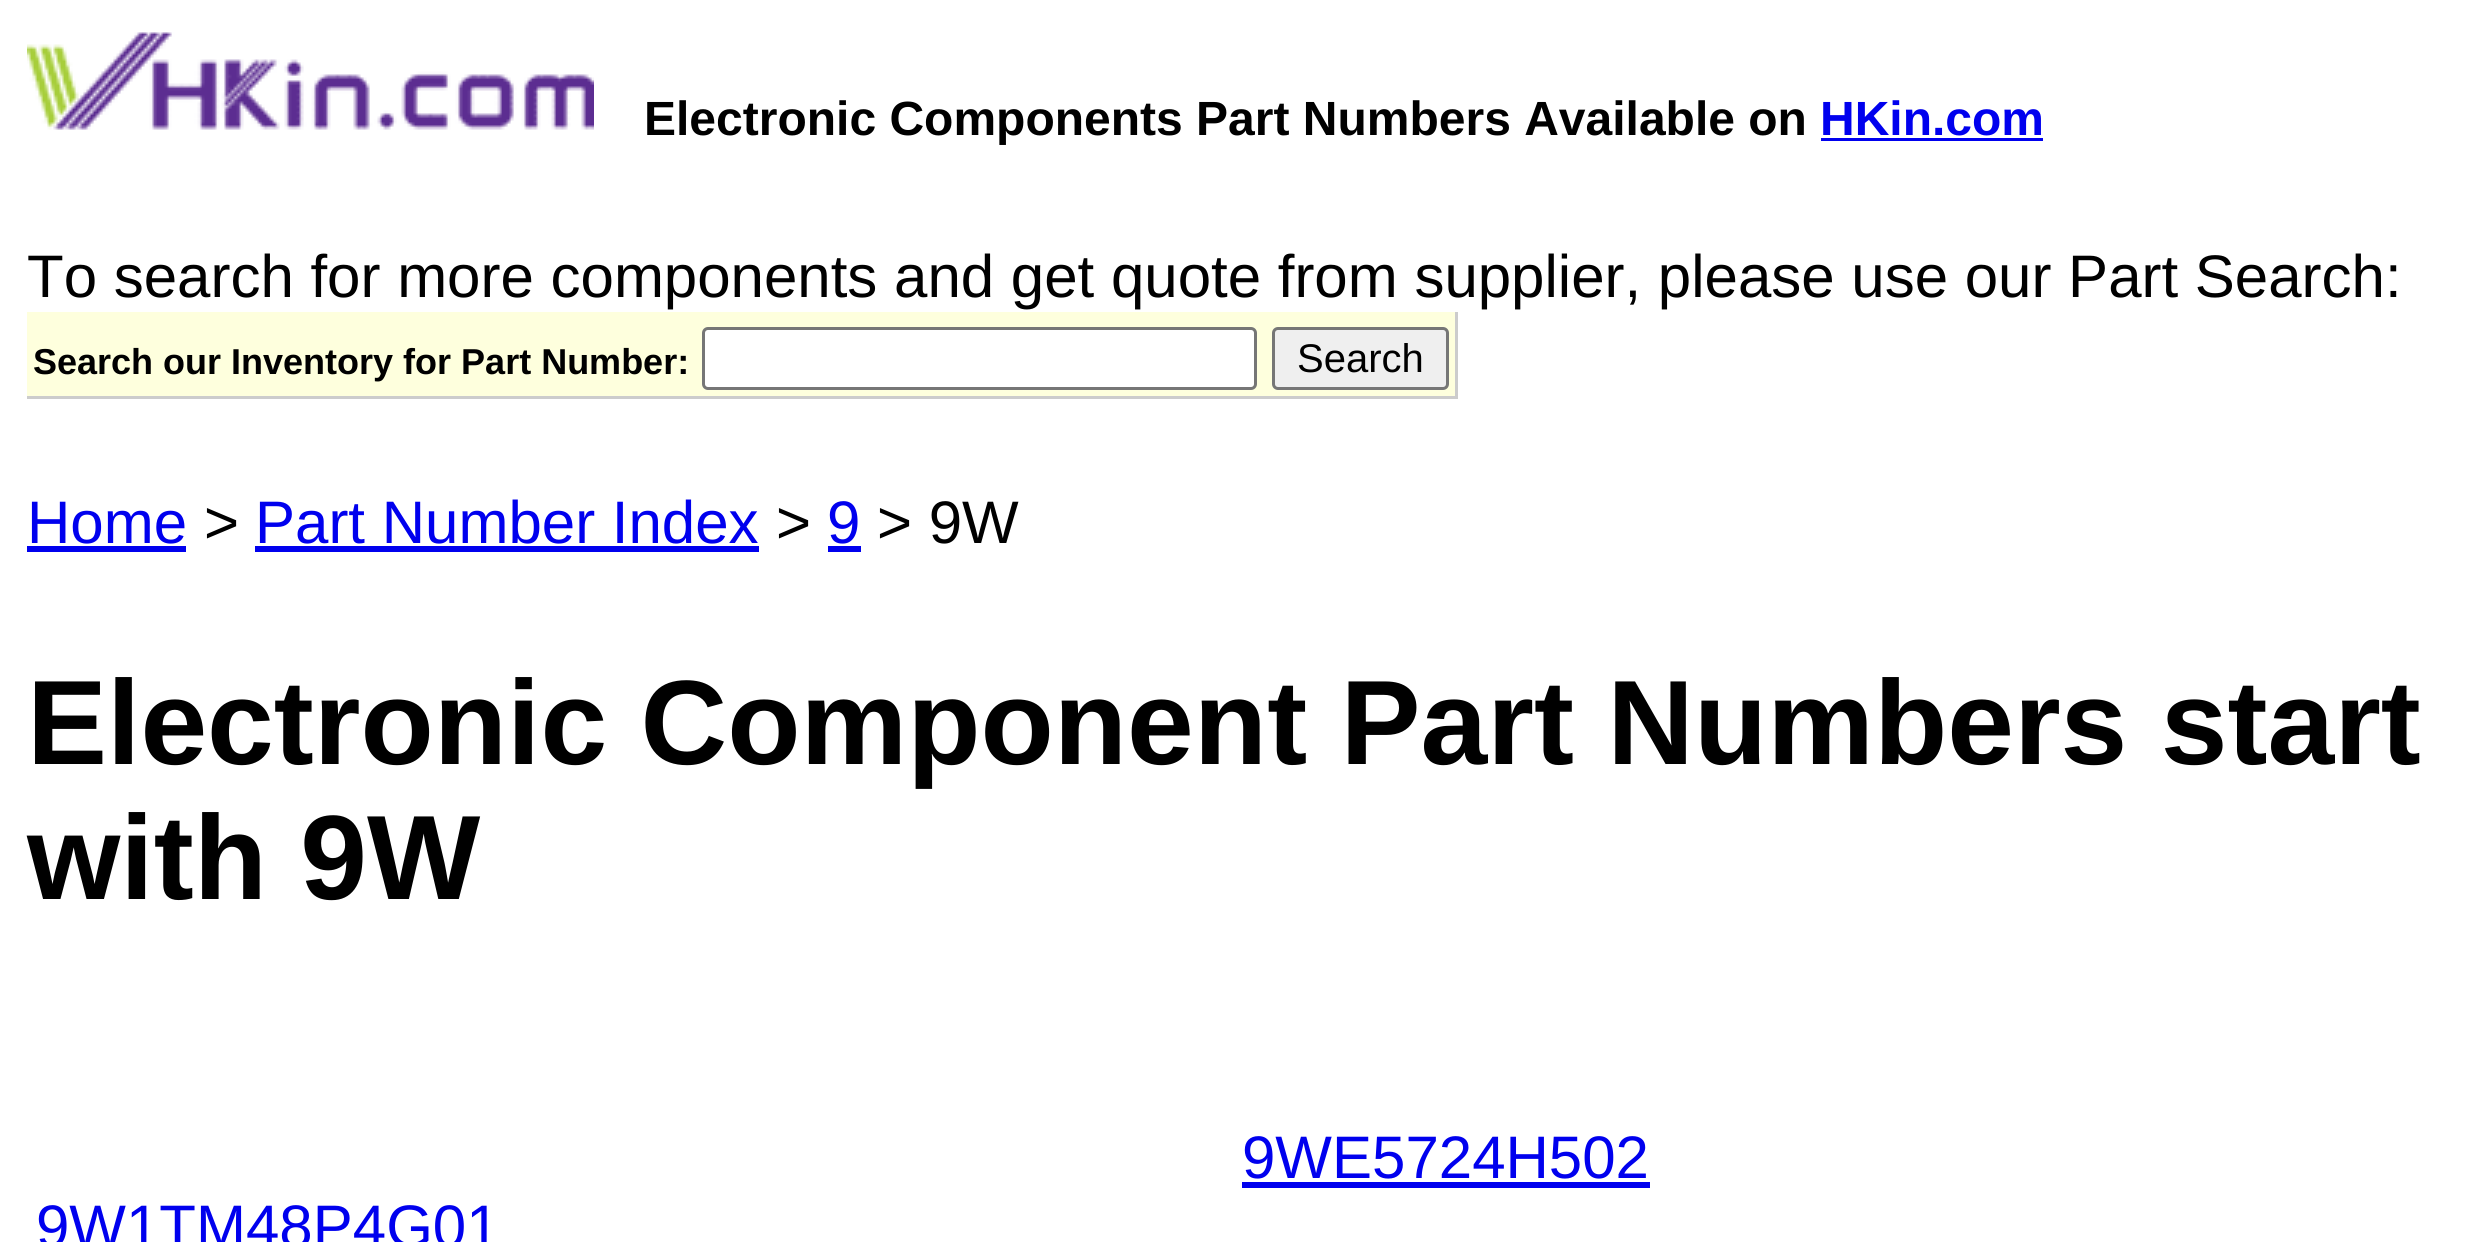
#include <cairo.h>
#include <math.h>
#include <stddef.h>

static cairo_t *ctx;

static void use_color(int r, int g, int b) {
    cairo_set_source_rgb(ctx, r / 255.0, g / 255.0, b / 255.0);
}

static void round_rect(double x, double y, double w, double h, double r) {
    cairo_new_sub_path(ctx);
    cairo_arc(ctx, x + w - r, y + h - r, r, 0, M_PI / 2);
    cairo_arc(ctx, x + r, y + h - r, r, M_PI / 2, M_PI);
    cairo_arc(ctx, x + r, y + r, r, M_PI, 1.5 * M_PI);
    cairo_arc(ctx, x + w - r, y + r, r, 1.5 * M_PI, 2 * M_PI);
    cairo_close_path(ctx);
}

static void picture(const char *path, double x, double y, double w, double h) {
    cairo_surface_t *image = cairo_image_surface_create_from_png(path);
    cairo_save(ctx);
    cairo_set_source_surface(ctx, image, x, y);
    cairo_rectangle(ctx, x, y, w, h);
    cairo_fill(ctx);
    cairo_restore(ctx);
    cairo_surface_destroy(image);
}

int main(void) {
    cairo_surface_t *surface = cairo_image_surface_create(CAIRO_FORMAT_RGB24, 2466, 1242);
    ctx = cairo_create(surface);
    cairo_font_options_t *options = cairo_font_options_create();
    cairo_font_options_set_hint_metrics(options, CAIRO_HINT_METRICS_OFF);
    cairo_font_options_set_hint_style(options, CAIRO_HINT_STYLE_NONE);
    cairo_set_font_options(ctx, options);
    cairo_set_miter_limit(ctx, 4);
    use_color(255, 255, 255);
    cairo_paint(ctx);
    picture("img1.png", 27, 32, 567, 98);
    cairo_select_font_face(ctx, "Liberation Sans", CAIRO_FONT_SLANT_NORMAL, CAIRO_FONT_WEIGHT_BOLD);
    cairo_set_font_size(ctx, 48);
    use_color(0, 0, 0);
    cairo_move_to(ctx, 644, 135);
    cairo_show_text(ctx, "Electronic Components Part Numbers Available on");
    use_color(0, 0, 238);
    cairo_move_to(ctx, 1820, 135);
    cairo_show_text(ctx, "HKin.com");
    cairo_rectangle(ctx, 1821, 138, 222, 3);
    cairo_fill(ctx);
    cairo_select_font_face(ctx, "Liberation Sans", CAIRO_FONT_SLANT_NORMAL, CAIRO_FONT_WEIGHT_NORMAL);
    cairo_set_font_size(ctx, 60);
    use_color(0, 0, 0);
    cairo_move_to(ctx, 27, 297);
    cairo_show_text(ctx, "To search for more components and get quote from supplier, please use our Part Search:");
    use_color(254, 255, 221);
    cairo_rectangle(ctx, 27, 312, 1428, 84);
    cairo_fill(ctx);
    use_color(204, 204, 204);
    cairo_rectangle(ctx, 1455, 312, 3, 87);
    cairo_fill(ctx);
    cairo_rectangle(ctx, 27, 396, 1431, 3);
    cairo_fill(ctx);
    cairo_select_font_face(ctx, "Liberation Sans", CAIRO_FONT_SLANT_NORMAL, CAIRO_FONT_WEIGHT_BOLD);
    cairo_set_font_size(ctx, 36);
    use_color(0, 0, 0);
    cairo_move_to(ctx, 33, 374);
    cairo_show_text(ctx, "Search our Inventory for Part Number:");
    use_color(255, 255, 255);
    round_rect(703.5, 328.5, 552, 60, 4.5);
    cairo_fill_preserve(ctx);
    use_color(118, 118, 118);
    cairo_set_line_width(ctx, 3);
    cairo_stroke(ctx);
    use_color(239, 239, 239);
    round_rect(1273.5, 328.5, 174, 60, 4.5);
    cairo_fill_preserve(ctx);
    use_color(118, 118, 118);
    cairo_stroke(ctx);
    cairo_select_font_face(ctx, "Liberation Sans", CAIRO_FONT_SLANT_NORMAL, CAIRO_FONT_WEIGHT_NORMAL);
    cairo_set_font_size(ctx, 40);
    use_color(0, 0, 0);
    cairo_move_to(ctx, 1297, 372);
    cairo_show_text(ctx, "Search");
    cairo_set_font_size(ctx, 60);
    use_color(0, 0, 238);
    cairo_move_to(ctx, 27, 543);
    cairo_show_text(ctx, "Home");
    cairo_rectangle(ctx, 27, 546, 159, 6);
    cairo_fill(ctx);
    use_color(0, 0, 0);
    cairo_move_to(ctx, 204, 543);
    cairo_show_text(ctx, ">");
    use_color(0, 0, 238);
    cairo_move_to(ctx, 255, 543);
    cairo_show_text(ctx, "Part Number Index");
    cairo_rectangle(ctx, 255, 546, 504, 6);
    cairo_fill(ctx);
    use_color(0, 0, 0);
    cairo_move_to(ctx, 776, 543);
    cairo_show_text(ctx, ">");
    use_color(0, 0, 238);
    cairo_move_to(ctx, 827, 543);
    cairo_show_text(ctx, "9");
    cairo_rectangle(ctx, 828, 546, 33, 6);
    cairo_fill(ctx);
    use_color(0, 0, 0);
    cairo_move_to(ctx, 877, 543);
    cairo_show_text(ctx, "> 9W");
    cairo_select_font_face(ctx, "Liberation Sans", CAIRO_FONT_SLANT_NORMAL, CAIRO_FONT_WEIGHT_BOLD);
    cairo_set_font_size(ctx, 120);
    cairo_move_to(ctx, 27, 764);
    cairo_show_text(ctx, "Electronic Component Part Numbers start");
    cairo_move_to(ctx, 27, 899);
    cairo_show_text(ctx, "with 9W");
    cairo_select_font_face(ctx, "Liberation Sans", CAIRO_FONT_SLANT_NORMAL, CAIRO_FONT_WEIGHT_NORMAL);
    cairo_set_font_size(ctx, 60);
    use_color(0, 0, 238);
    cairo_move_to(ctx, 1242, 1178);
    cairo_show_text(ctx, "9WE5724H502");
    cairo_rectangle(ctx, 1242, 1182, 408, 6);
    cairo_fill(ctx);
    cairo_move_to(ctx, 36, 1247);
    cairo_show_text(ctx, "9W1TM48P4G01");
    cairo_surface_write_to_png(surface, "result.png");
    cairo_font_options_destroy(options);
    cairo_destroy(ctx);
    cairo_surface_destroy(surface);
    return 0;
}
